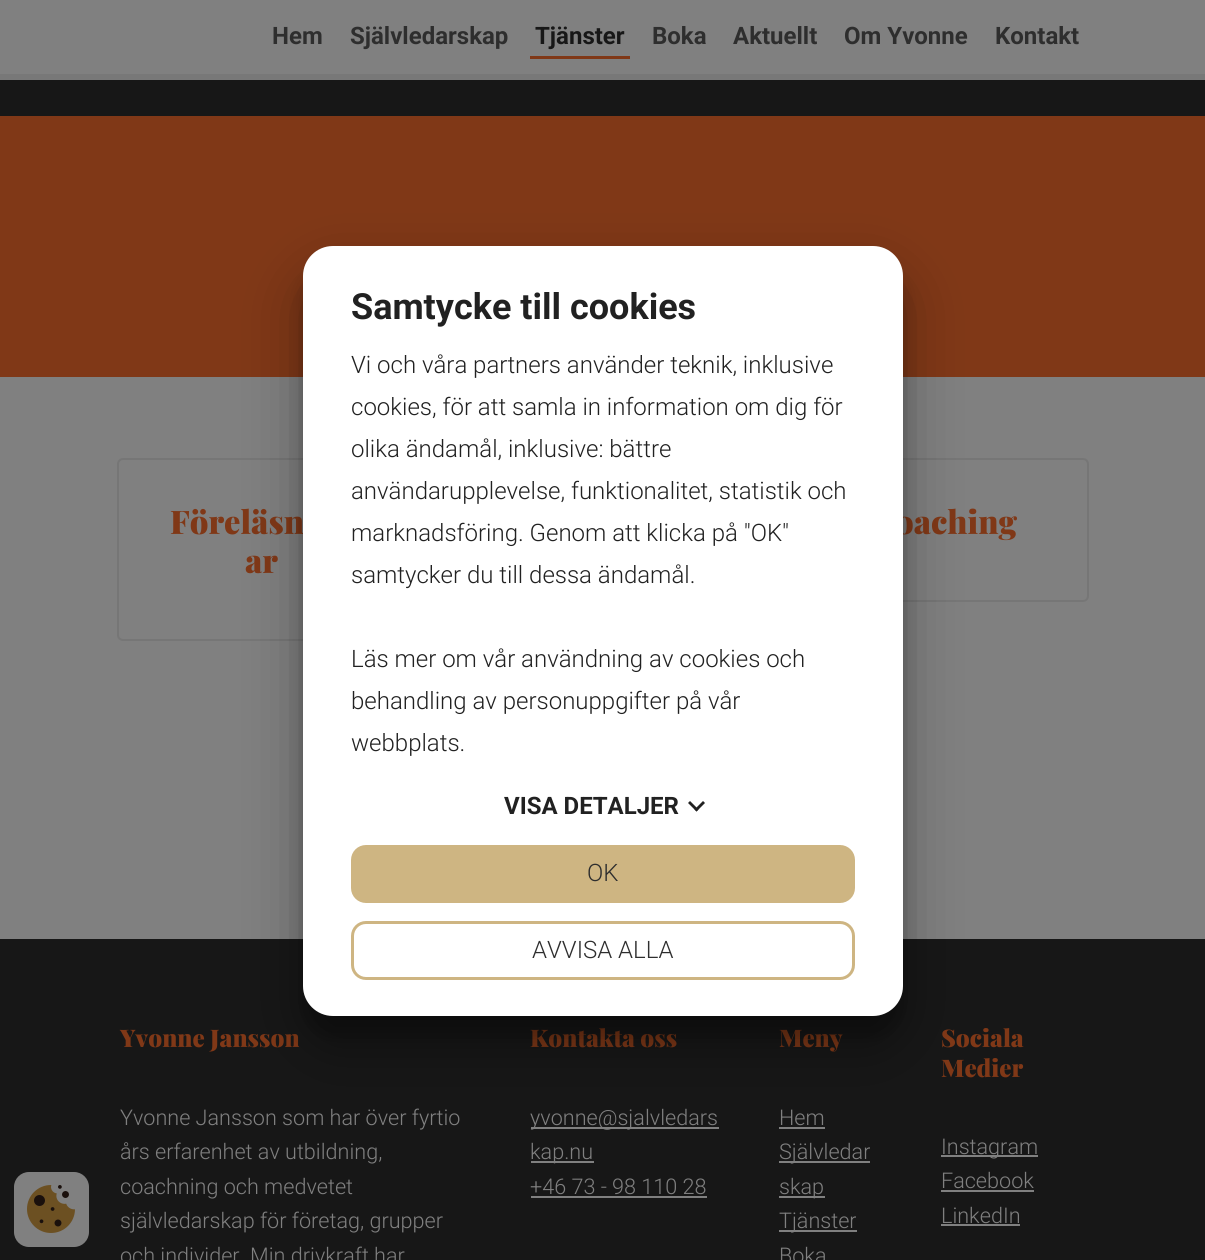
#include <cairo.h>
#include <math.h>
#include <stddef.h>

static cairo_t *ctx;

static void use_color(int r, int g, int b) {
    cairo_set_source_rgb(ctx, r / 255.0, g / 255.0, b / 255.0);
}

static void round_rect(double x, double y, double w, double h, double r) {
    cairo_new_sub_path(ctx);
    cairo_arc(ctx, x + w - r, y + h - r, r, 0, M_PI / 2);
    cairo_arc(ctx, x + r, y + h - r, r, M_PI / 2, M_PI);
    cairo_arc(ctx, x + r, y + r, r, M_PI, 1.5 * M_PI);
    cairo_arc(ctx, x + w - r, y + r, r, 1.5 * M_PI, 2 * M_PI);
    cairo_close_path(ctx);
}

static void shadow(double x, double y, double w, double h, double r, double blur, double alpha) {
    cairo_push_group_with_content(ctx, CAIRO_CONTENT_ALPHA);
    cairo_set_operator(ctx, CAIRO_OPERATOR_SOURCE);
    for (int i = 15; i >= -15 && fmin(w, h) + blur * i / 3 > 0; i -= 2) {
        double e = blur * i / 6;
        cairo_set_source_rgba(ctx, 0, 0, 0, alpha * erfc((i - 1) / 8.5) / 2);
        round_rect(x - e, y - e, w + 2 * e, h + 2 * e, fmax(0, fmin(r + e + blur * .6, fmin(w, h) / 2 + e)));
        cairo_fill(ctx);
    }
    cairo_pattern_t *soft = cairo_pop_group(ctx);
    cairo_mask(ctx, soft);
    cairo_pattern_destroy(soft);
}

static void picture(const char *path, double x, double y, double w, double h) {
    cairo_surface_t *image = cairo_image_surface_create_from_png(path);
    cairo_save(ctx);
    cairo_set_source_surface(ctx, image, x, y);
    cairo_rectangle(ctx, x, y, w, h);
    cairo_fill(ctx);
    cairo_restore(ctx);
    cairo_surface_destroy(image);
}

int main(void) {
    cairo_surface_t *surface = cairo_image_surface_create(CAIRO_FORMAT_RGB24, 1205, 1260);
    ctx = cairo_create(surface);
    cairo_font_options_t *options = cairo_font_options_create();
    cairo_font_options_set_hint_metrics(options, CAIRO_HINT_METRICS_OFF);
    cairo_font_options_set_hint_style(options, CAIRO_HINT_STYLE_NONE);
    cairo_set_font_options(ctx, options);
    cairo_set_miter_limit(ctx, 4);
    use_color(23, 23, 23);
    cairo_paint(ctx);
    use_color(120, 120, 120);
    cairo_rectangle(ctx, 0, 74, 1205, 6);
    cairo_fill(ctx);
    use_color(128, 128, 128);
    cairo_rectangle(ctx, 0, 0, 1205, 74);
    cairo_fill(ctx);
    cairo_select_font_face(ctx, "Roboto", CAIRO_FONT_SLANT_NORMAL, CAIRO_FONT_WEIGHT_BOLD);
    cairo_set_font_size(ctx, 24);
    use_color(46, 46, 46);
    cairo_move_to(ctx, 272, 44);
    cairo_show_text(ctx, "Hem");
    cairo_move_to(ctx, 350, 44);
    cairo_show_text(ctx, "Självledarskap");
    use_color(128, 56, 23);
    cairo_rectangle(ctx, 530, 56, 100, 3);
    cairo_fill(ctx);
    use_color(23, 23, 23);
    cairo_move_to(ctx, 535, 44);
    cairo_show_text(ctx, "Tjänster");
    use_color(46, 46, 46);
    cairo_move_to(ctx, 652, 44);
    cairo_show_text(ctx, "Boka");
    cairo_move_to(ctx, 733, 44);
    cairo_show_text(ctx, "Aktuellt");
    cairo_move_to(ctx, 844, 44);
    cairo_show_text(ctx, "Om Yvonne");
    cairo_move_to(ctx, 995, 44);
    cairo_show_text(ctx, "Kontakt");
    use_color(128, 128, 128);
    cairo_rectangle(ctx, 0, 377, 1205, 562);
    cairo_fill(ctx);
    use_color(128, 56, 23);
    cairo_rectangle(ctx, 0, 116, 1205, 261);
    cairo_fill(ctx);
    round_rect(118, 459, 286, 181, 5);
    use_color(118, 118, 118);
    cairo_stroke(ctx);
    cairo_select_font_face(ctx, "Playfair Display Black", CAIRO_FONT_SLANT_NORMAL, CAIRO_FONT_WEIGHT_NORMAL);
    cairo_set_font_size(ctx, 32.5);
    use_color(128, 56, 23);
    cairo_move_to(ctx, 170, 534);
    cairo_show_text(ctx, "Föreläsn");
    cairo_move_to(ctx, 245, 573);
    cairo_show_text(ctx, "ar");
    round_rect(802, 459, 286, 142, 5);
    use_color(118, 118, 118);
    cairo_stroke(ctx);
    use_color(128, 56, 23);
    cairo_move_to(ctx, 895, 534);
    cairo_show_text(ctx, "oaching");
    cairo_set_font_size(ctx, 24.25);
    cairo_move_to(ctx, 120, 1047);
    cairo_show_text(ctx, "Yvonne Jansson");
    cairo_select_font_face(ctx, "Roboto Light", CAIRO_FONT_SLANT_NORMAL, CAIRO_FONT_WEIGHT_NORMAL);
    cairo_set_font_size(ctx, 21.6);
    use_color(128, 128, 128);
    cairo_move_to(ctx, 120, 1125);
    cairo_show_text(ctx, "Yvonne Jansson som har över fyrtio");
    cairo_move_to(ctx, 120, 1159);
    cairo_show_text(ctx, "års erfarenhet av utbildning,");
    cairo_move_to(ctx, 120, 1194);
    cairo_show_text(ctx, "coachning och medvetet");
    cairo_move_to(ctx, 120, 1228);
    cairo_show_text(ctx, "självledarskap för företag, grupper");
    cairo_move_to(ctx, 120, 1263);
    cairo_show_text(ctx, "och individer. Min drivkraft har");
    cairo_select_font_face(ctx, "Playfair Display Black", CAIRO_FONT_SLANT_NORMAL, CAIRO_FONT_WEIGHT_NORMAL);
    cairo_set_font_size(ctx, 24.25);
    use_color(128, 56, 23);
    cairo_move_to(ctx, 530, 1047);
    cairo_show_text(ctx, "Kontakta oss");
    use_color(128, 128, 128);
    cairo_rectangle(ctx, 531, 1127, 188, 2);
    cairo_fill(ctx);
    cairo_select_font_face(ctx, "Roboto Light", CAIRO_FONT_SLANT_NORMAL, CAIRO_FONT_WEIGHT_NORMAL);
    cairo_set_font_size(ctx, 21.6);
    cairo_move_to(ctx, 530, 1125);
    cairo_show_text(ctx, "yvonne@sjalvledars");
    cairo_rectangle(ctx, 531, 1161, 63, 2);
    cairo_fill(ctx);
    cairo_move_to(ctx, 530, 1159);
    cairo_show_text(ctx, "kap.nu");
    cairo_move_to(ctx, 530, 1194);
    cairo_show_text(ctx, "+46 73 - 98 110 28");
    cairo_rectangle(ctx, 531, 1196, 176, 2);
    cairo_fill(ctx);
    cairo_select_font_face(ctx, "Playfair Display Black", CAIRO_FONT_SLANT_NORMAL, CAIRO_FONT_WEIGHT_NORMAL);
    cairo_set_font_size(ctx, 24.25);
    use_color(128, 56, 23);
    cairo_move_to(ctx, 779, 1047);
    cairo_show_text(ctx, "Meny");
    cairo_select_font_face(ctx, "Roboto Light", CAIRO_FONT_SLANT_NORMAL, CAIRO_FONT_WEIGHT_NORMAL);
    cairo_set_font_size(ctx, 21.6);
    use_color(128, 128, 128);
    cairo_move_to(ctx, 779, 1125);
    cairo_show_text(ctx, "Hem");
    cairo_rectangle(ctx, 779, 1127, 46, 2);
    cairo_fill(ctx);
    cairo_rectangle(ctx, 779, 1161, 91, 2);
    cairo_fill(ctx);
    cairo_move_to(ctx, 779, 1159);
    cairo_show_text(ctx, "Självledar");
    cairo_rectangle(ctx, 779, 1196, 46, 2);
    cairo_fill(ctx);
    cairo_move_to(ctx, 779, 1194);
    cairo_show_text(ctx, "skap");
    cairo_rectangle(ctx, 779, 1230, 78, 2);
    cairo_fill(ctx);
    cairo_move_to(ctx, 779, 1228);
    cairo_show_text(ctx, "Tjänster");
    cairo_move_to(ctx, 779, 1263);
    cairo_show_text(ctx, "Boka");
    cairo_select_font_face(ctx, "Playfair Display Black", CAIRO_FONT_SLANT_NORMAL, CAIRO_FONT_WEIGHT_NORMAL);
    cairo_set_font_size(ctx, 24.25);
    use_color(128, 56, 23);
    cairo_move_to(ctx, 941, 1047);
    cairo_show_text(ctx, "Sociala");
    cairo_move_to(ctx, 941, 1077);
    cairo_show_text(ctx, "Medier");
    use_color(128, 128, 128);
    cairo_rectangle(ctx, 941, 1155, 97, 2);
    cairo_fill(ctx);
    cairo_select_font_face(ctx, "Roboto Light", CAIRO_FONT_SLANT_NORMAL, CAIRO_FONT_WEIGHT_NORMAL);
    cairo_set_font_size(ctx, 21.6);
    cairo_move_to(ctx, 941, 1154);
    cairo_show_text(ctx, "Instagram");
    cairo_move_to(ctx, 941, 1188);
    cairo_show_text(ctx, "Facebook");
    cairo_rectangle(ctx, 941, 1190, 93, 2);
    cairo_fill(ctx);
    cairo_move_to(ctx, 941, 1223);
    cairo_show_text(ctx, "LinkedIn");
    cairo_rectangle(ctx, 941, 1224, 79, 2);
    cairo_fill(ctx);
    use_color(0, 0, 0);
    shadow(303, 269, 600, 769, 30, 9, 0.22);
    shadow(303, 275, 600, 769, 30, 28.5, 0.3);
    use_color(255, 255, 255);
    round_rect(303, 246, 600, 770, 30);
    cairo_fill(ctx);
    cairo_select_font_face(ctx, "Roboto", CAIRO_FONT_SLANT_NORMAL, CAIRO_FONT_WEIGHT_BOLD);
    cairo_set_font_size(ctx, 36);
    use_color(33, 33, 33);
    cairo_move_to(ctx, 351, 319);
    cairo_show_text(ctx, "Samtycke till cookies");
    cairo_select_font_face(ctx, "Roboto Light", CAIRO_FONT_SLANT_NORMAL, CAIRO_FONT_WEIGHT_NORMAL);
    cairo_set_font_size(ctx, 24);
    cairo_move_to(ctx, 351, 373);
    cairo_show_text(ctx, "Vi och våra partners använder teknik, inklusive");
    cairo_move_to(ctx, 351, 415);
    cairo_show_text(ctx, "cookies, för att samla in information om dig för");
    cairo_move_to(ctx, 351, 457);
    cairo_show_text(ctx, "olika ändamål, inklusive: bättre");
    cairo_move_to(ctx, 351, 499);
    cairo_show_text(ctx, "användarupplevelse, funktionalitet, statistik och");
    cairo_move_to(ctx, 351, 541);
    cairo_show_text(ctx, "marknadsföring. Genom att klicka på \"OK\"");
    cairo_move_to(ctx, 351, 583);
    cairo_show_text(ctx, "samtycker du till dessa ändamål.");
    cairo_move_to(ctx, 351, 667);
    cairo_show_text(ctx, "Läs mer om vår användning av cookies och");
    cairo_move_to(ctx, 351, 709);
    cairo_show_text(ctx, "behandling av personuppgifter på vår");
    cairo_move_to(ctx, 351, 751);
    cairo_show_text(ctx, "webbplats.");
    cairo_select_font_face(ctx, "Roboto", CAIRO_FONT_SLANT_NORMAL, CAIRO_FONT_WEIGHT_BOLD);
    cairo_move_to(ctx, 504, 814);
    cairo_show_text(ctx, "VISA DETALJER");
    cairo_new_path(ctx);
    cairo_move_to(ctx, 703, 801);
    cairo_line_to(ctx, 705, 803);
    cairo_line_to(ctx, 696.5, 811.5);
    cairo_line_to(ctx, 694.5, 809.5);
    cairo_close_path(ctx);
    cairo_fill(ctx);
    cairo_new_path(ctx);
    cairo_move_to(ctx, 690, 801);
    cairo_line_to(ctx, 698.5, 809.5);
    cairo_line_to(ctx, 696.5, 811.5);
    cairo_line_to(ctx, 688, 803);
    cairo_close_path(ctx);
    cairo_fill(ctx);
    use_color(206, 181, 130);
    round_rect(352.5, 846.5, 501, 55, 13.5);
    cairo_fill_preserve(ctx);
    cairo_set_line_width(ctx, 3);
    cairo_stroke(ctx);
    cairo_select_font_face(ctx, "Roboto Light", CAIRO_FONT_SLANT_NORMAL, CAIRO_FONT_WEIGHT_NORMAL);
    use_color(46, 46, 46);
    cairo_move_to(ctx, 587, 881);
    cairo_show_text(ctx, "OK");
    round_rect(352.5, 922.5, 501, 56, 13.5);
    use_color(206, 181, 130);
    cairo_stroke(ctx);
    use_color(46, 46, 46);
    cairo_move_to(ctx, 532, 958);
    cairo_show_text(ctx, "AVVISA ALLA");
    use_color(128, 128, 128);
    round_rect(14, 1172, 75, 75, 15);
    cairo_fill(ctx);
    picture("img1.png", 27, 1185, 48, 48);
    cairo_surface_write_to_png(surface, "result.png");
    cairo_font_options_destroy(options);
    cairo_destroy(ctx);
    cairo_surface_destroy(surface);
    return 0;
}
